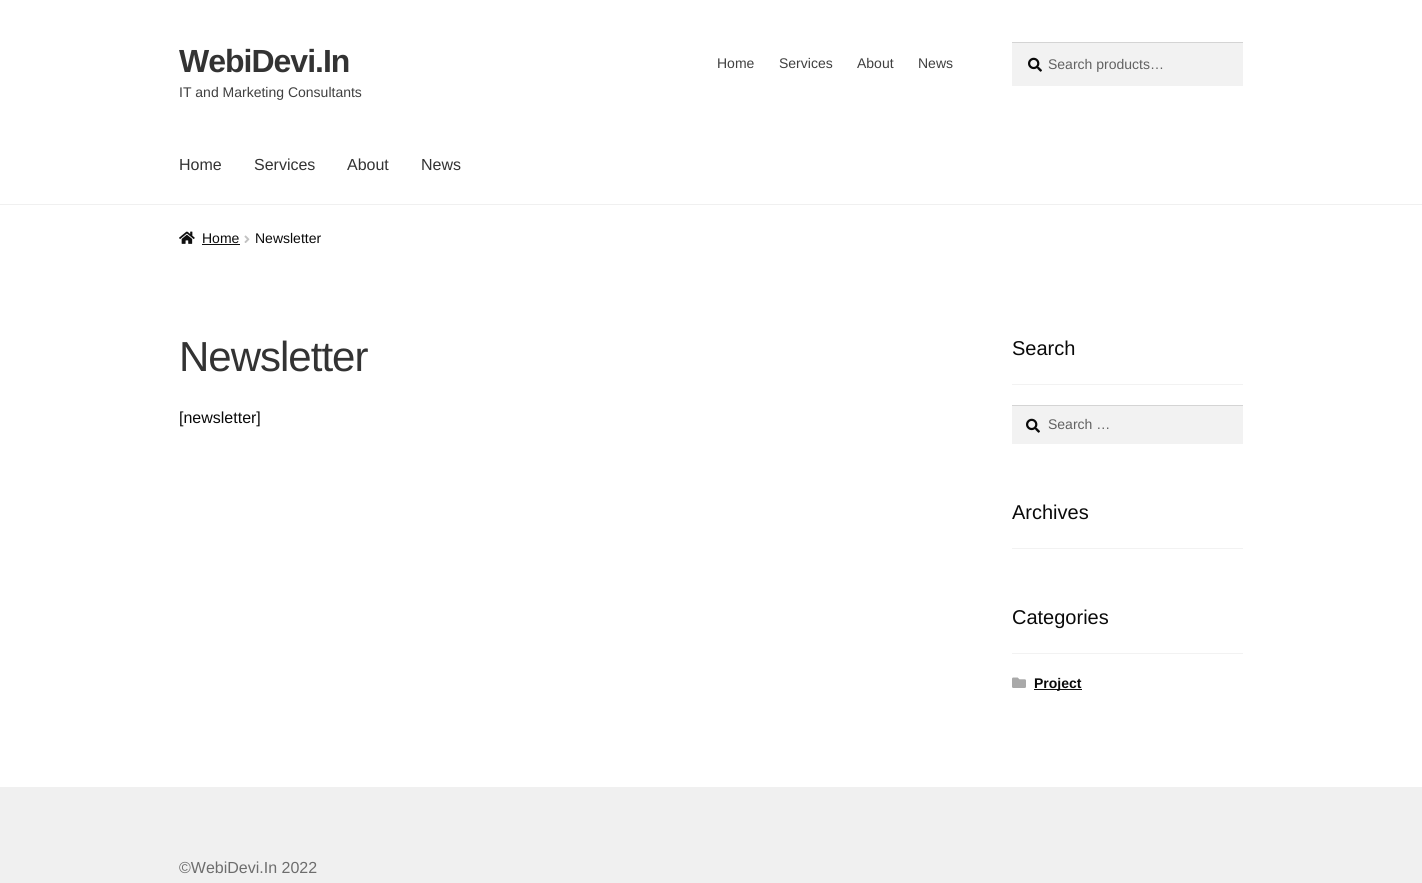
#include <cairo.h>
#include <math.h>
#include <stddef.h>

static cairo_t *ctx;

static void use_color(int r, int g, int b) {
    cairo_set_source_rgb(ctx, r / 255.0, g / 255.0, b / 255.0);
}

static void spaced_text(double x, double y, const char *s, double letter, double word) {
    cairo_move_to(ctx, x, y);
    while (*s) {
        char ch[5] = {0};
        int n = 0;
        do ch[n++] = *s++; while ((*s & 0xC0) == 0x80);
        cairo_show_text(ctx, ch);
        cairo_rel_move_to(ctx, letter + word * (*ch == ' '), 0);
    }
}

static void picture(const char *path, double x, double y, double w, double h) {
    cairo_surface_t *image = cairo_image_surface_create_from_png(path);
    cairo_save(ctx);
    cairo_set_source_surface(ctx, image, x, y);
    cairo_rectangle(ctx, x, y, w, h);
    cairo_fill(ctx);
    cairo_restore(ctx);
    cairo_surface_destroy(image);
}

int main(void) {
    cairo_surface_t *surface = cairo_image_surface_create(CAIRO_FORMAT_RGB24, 1422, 883);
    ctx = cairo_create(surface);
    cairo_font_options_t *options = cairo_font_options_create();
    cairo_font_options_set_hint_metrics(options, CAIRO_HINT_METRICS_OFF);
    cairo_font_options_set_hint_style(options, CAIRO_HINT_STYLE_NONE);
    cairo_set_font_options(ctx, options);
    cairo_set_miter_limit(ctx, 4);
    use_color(255, 255, 255);
    cairo_paint(ctx);
    use_color(240, 240, 240);
    cairo_rectangle(ctx, 0, 204, 1422, 1);
    cairo_fill(ctx);
    cairo_select_font_face(ctx, "Liberation Sans", CAIRO_FONT_SLANT_NORMAL, CAIRO_FONT_WEIGHT_BOLD);
    cairo_set_font_size(ctx, 32);
    use_color(51, 51, 51);
    spaced_text(179, 72, "WebiDevi.In", -1, 0);
    cairo_select_font_face(ctx, "Liberation Sans", CAIRO_FONT_SLANT_NORMAL, CAIRO_FONT_WEIGHT_NORMAL);
    cairo_set_font_size(ctx, 14);
    use_color(64, 64, 64);
    cairo_move_to(ctx, 179, 97);
    cairo_show_text(ctx, "IT and Marketing Consultants");
    cairo_move_to(ctx, 717, 68);
    cairo_show_text(ctx, "Home");
    cairo_move_to(ctx, 779, 68);
    cairo_show_text(ctx, "Services");
    cairo_move_to(ctx, 857, 68);
    cairo_show_text(ctx, "About");
    cairo_move_to(ctx, 918, 68);
    cairo_show_text(ctx, "News");
    use_color(242, 242, 242);
    cairo_rectangle(ctx, 1012, 43, 231, 43);
    cairo_fill(ctx);
    picture("img1.png", 1028, 57, 14, 15);
    use_color(212, 212, 212);
    cairo_rectangle(ctx, 1012, 42, 231, 1);
    cairo_fill(ctx);
    use_color(97, 97, 97);
    cairo_move_to(ctx, 1048, 69);
    cairo_show_text(ctx, "Search products…");
    cairo_set_font_size(ctx, 16);
    use_color(51, 51, 51);
    cairo_move_to(ctx, 179, 170);
    cairo_show_text(ctx, "Home");
    cairo_move_to(ctx, 254, 170);
    cairo_show_text(ctx, "Services");
    cairo_move_to(ctx, 347, 170);
    cairo_show_text(ctx, "About");
    cairo_move_to(ctx, 421, 170);
    cairo_show_text(ctx, "News");
    picture("img2.png", 179, 231, 16, 13);
    cairo_set_font_size(ctx, 14);
    use_color(10, 10, 10);
    cairo_move_to(ctx, 202, 243);
    cairo_show_text(ctx, "Home");
    use_color(15, 15, 15);
    cairo_rectangle(ctx, 202, 244, 38, 1);
    cairo_fill(ctx);
    picture("img3.png", 244, 235, 6, 8);
    use_color(10, 10, 10);
    cairo_move_to(ctx, 255, 243);
    cairo_show_text(ctx, "Newsletter");
    cairo_set_font_size(ctx, 42);
    use_color(51, 51, 51);
    spaced_text(179, 371, "Newsletter", -1, 0);
    cairo_set_font_size(ctx, 16);
    use_color(10, 10, 10);
    cairo_move_to(ctx, 179, 423);
    cairo_show_text(ctx, "[newsletter]");
    use_color(242, 242, 242);
    cairo_rectangle(ctx, 1012, 384, 231, 1);
    cairo_fill(ctx);
    cairo_set_font_size(ctx, 20);
    use_color(10, 10, 10);
    cairo_move_to(ctx, 1012, 355);
    cairo_show_text(ctx, "Search");
    use_color(242, 242, 242);
    cairo_rectangle(ctx, 1012, 406, 231, 38);
    cairo_fill(ctx);
    picture("img1.png", 1026, 418, 14, 15);
    use_color(212, 212, 212);
    cairo_rectangle(ctx, 1012, 405, 231, 1);
    cairo_fill(ctx);
    cairo_set_font_size(ctx, 14);
    use_color(97, 97, 97);
    cairo_move_to(ctx, 1048, 429);
    cairo_show_text(ctx, "Search …");
    use_color(242, 242, 242);
    cairo_rectangle(ctx, 1012, 548, 231, 1);
    cairo_fill(ctx);
    cairo_set_font_size(ctx, 20);
    use_color(10, 10, 10);
    cairo_move_to(ctx, 1012, 519);
    cairo_show_text(ctx, "Archives");
    use_color(242, 242, 242);
    cairo_rectangle(ctx, 1012, 653, 231, 1);
    cairo_fill(ctx);
    use_color(10, 10, 10);
    cairo_move_to(ctx, 1012, 624);
    cairo_show_text(ctx, "Categories");
    picture("img4.png", 1012, 677, 14, 11);
    use_color(15, 15, 15);
    cairo_rectangle(ctx, 1034, 689, 48, 1);
    cairo_fill(ctx);
    cairo_select_font_face(ctx, "Liberation Sans", CAIRO_FONT_SLANT_NORMAL, CAIRO_FONT_WEIGHT_BOLD);
    cairo_set_font_size(ctx, 14);
    use_color(10, 10, 10);
    cairo_move_to(ctx, 1034, 688);
    cairo_show_text(ctx, "Project");
    use_color(240, 240, 240);
    cairo_rectangle(ctx, 0, 787, 1422, 96);
    cairo_fill(ctx);
    cairo_select_font_face(ctx, "Liberation Sans", CAIRO_FONT_SLANT_NORMAL, CAIRO_FONT_WEIGHT_NORMAL);
    cairo_set_font_size(ctx, 16);
    use_color(109, 109, 109);
    cairo_move_to(ctx, 179, 873);
    cairo_show_text(ctx, "©WebiDevi.In 2022");
    cairo_surface_write_to_png(surface, "result.png");
    cairo_font_options_destroy(options);
    cairo_destroy(ctx);
    cairo_surface_destroy(surface);
    return 0;
}
